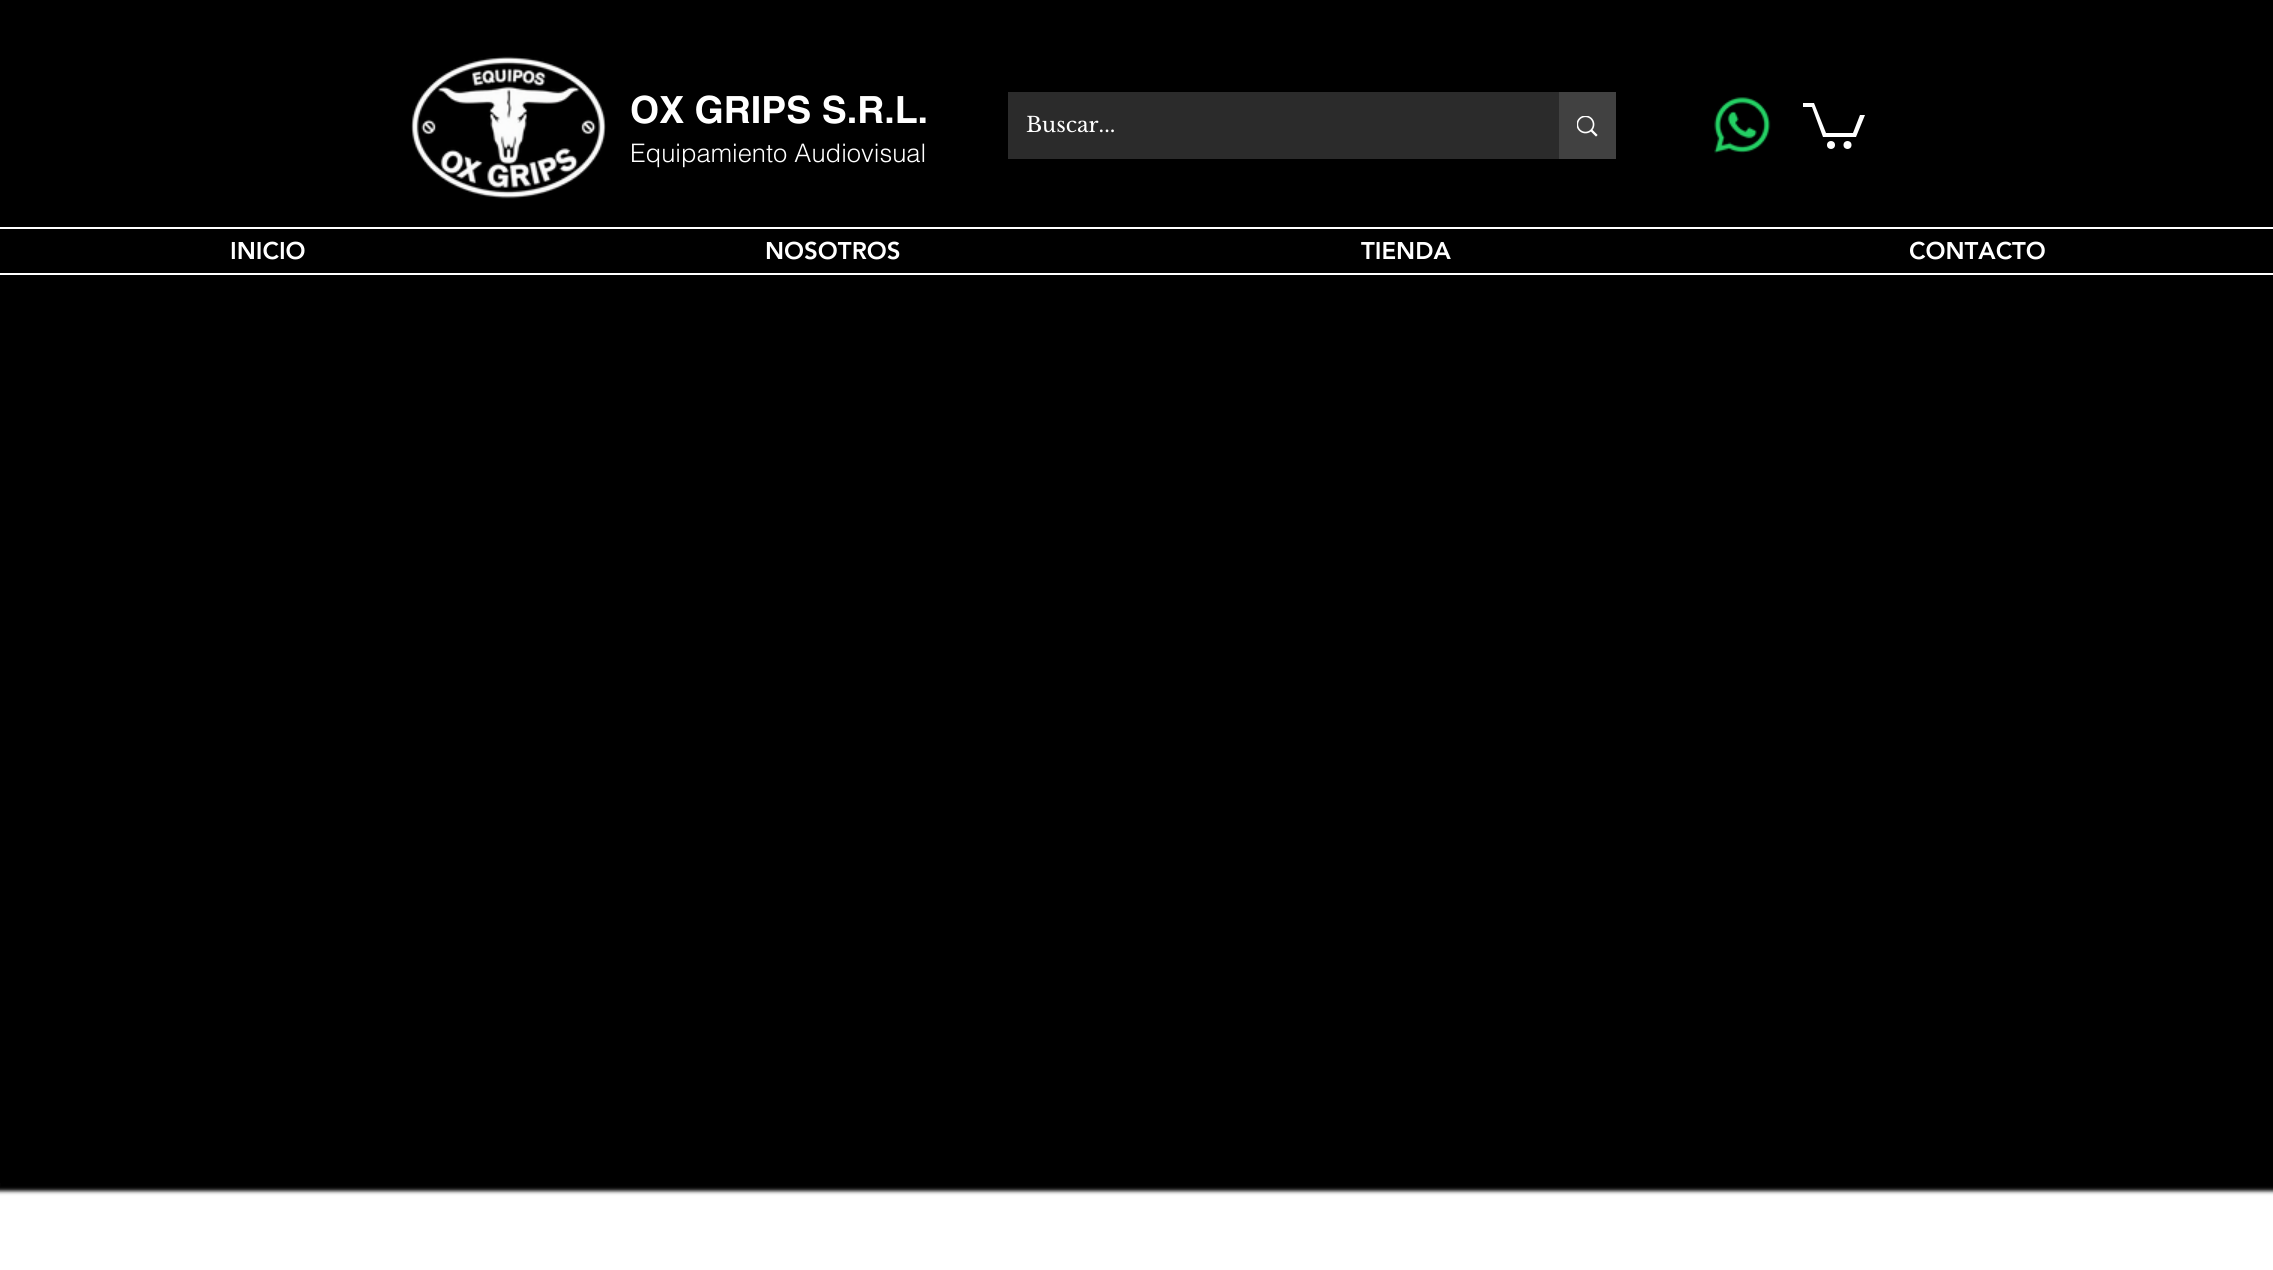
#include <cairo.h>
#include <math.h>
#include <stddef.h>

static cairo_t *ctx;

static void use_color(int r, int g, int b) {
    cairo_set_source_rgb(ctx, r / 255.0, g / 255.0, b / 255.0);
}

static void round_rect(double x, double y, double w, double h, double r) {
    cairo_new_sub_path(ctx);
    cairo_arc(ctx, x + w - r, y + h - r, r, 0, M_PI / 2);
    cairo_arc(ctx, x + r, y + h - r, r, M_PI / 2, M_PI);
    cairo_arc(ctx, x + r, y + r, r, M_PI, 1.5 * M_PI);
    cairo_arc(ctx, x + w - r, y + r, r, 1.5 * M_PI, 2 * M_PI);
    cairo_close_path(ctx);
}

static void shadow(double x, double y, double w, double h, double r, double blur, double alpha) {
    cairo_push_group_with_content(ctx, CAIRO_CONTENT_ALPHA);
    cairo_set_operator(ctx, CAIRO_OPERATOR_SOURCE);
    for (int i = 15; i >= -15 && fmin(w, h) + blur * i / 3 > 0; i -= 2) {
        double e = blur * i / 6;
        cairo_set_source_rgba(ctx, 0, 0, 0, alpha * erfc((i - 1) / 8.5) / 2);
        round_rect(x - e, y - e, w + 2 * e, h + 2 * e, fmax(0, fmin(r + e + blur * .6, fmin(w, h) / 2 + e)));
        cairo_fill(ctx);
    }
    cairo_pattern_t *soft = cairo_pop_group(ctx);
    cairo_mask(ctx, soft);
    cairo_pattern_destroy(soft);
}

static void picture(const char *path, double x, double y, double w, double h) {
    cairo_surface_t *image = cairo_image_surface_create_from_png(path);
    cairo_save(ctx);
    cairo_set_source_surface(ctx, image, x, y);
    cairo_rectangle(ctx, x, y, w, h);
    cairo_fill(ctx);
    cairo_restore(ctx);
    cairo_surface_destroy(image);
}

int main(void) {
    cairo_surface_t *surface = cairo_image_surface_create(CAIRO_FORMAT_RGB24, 2273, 1270);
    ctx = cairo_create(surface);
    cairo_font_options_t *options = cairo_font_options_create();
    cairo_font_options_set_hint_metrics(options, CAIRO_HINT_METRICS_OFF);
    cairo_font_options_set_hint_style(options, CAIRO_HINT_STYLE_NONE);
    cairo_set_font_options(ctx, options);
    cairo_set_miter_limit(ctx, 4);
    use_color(255, 255, 255);
    cairo_paint(ctx);
    use_color(0, 0, 0);
    shadow(-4, 0, 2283, 1191, 0, 2, 1);
    use_color(0, 0, 0);
    cairo_rectangle(ctx, 0, 1178, 1, 5);
    cairo_fill(ctx);
    cairo_rectangle(ctx, 0, 0, 2273, 1178);
    cairo_fill(ctx);
    picture("img1.png", 411, 56, 195, 143);
    cairo_select_font_face(ctx, "helvetica", CAIRO_FONT_SLANT_NORMAL, CAIRO_FONT_WEIGHT_BOLD);
    cairo_set_font_size(ctx, 37.5);
    use_color(255, 255, 255);
    cairo_move_to(ctx, 630, 123);
    cairo_show_text(ctx, "OX GRIPS S.R.L.");
    cairo_select_font_face(ctx, "helvetica Light", CAIRO_FONT_SLANT_NORMAL, CAIRO_FONT_WEIGHT_NORMAL);
    cairo_set_font_size(ctx, 25.5);
    cairo_move_to(ctx, 630, 162);
    cairo_show_text(ctx, "Equipamiento Audiovisual");
    use_color(43, 43, 43);
    cairo_rectangle(ctx, 1008, 92, 551, 67);
    cairo_fill(ctx);
    cairo_select_font_face(ctx, "Libre Baskerville", CAIRO_FONT_SLANT_NORMAL, CAIRO_FONT_WEIGHT_NORMAL);
    cairo_set_font_size(ctx, 21);
    use_color(255, 255, 255);
    cairo_move_to(ctx, 1026, 132);
    cairo_show_text(ctx, "Buscar...");
    use_color(65, 65, 65);
    cairo_rectangle(ctx, 1559, 92, 57, 67);
    cairo_fill(ctx);
    picture("img2.png", 1577, 116, 21, 21);
    picture("img3.png", 1714, 97, 57, 57);
    use_color(255, 255, 255);
    cairo_new_path(ctx);
    cairo_move_to(ctx, 1865, 115);
    cairo_line_to(ctx, 1856, 137);
    cairo_line_to(ctx, 1823, 137);
    cairo_line_to(ctx, 1812, 107);
    cairo_line_to(ctx, 1803, 107);
    cairo_line_to(ctx, 1803, 103);
    cairo_line_to(ctx, 1814, 103);
    cairo_line_to(ctx, 1826, 133);
    cairo_line_to(ctx, 1853, 133);
    cairo_line_to(ctx, 1860, 115);
    cairo_fill(ctx);
    cairo_arc(ctx, 1847.5, 145, 4, 0, 2 * M_PI);
    cairo_fill(ctx);
    cairo_arc(ctx, 1831, 145, 4, 0, 2 * M_PI);
    cairo_fill(ctx);
    cairo_rectangle(ctx, 0, 227, 2273, 2);
    cairo_fill(ctx);
    cairo_rectangle(ctx, 0, 273, 2273, 2);
    cairo_fill(ctx);
    cairo_select_font_face(ctx, "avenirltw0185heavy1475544 Black", CAIRO_FONT_SLANT_NORMAL, CAIRO_FONT_WEIGHT_NORMAL);
    cairo_set_font_size(ctx, 24);
    cairo_move_to(ctx, 230, 259);
    cairo_show_text(ctx, "INICIO");
    cairo_move_to(ctx, 765, 259);
    cairo_show_text(ctx, "NOSOTROS");
    cairo_move_to(ctx, 1361, 259);
    cairo_show_text(ctx, "TIENDA");
    cairo_move_to(ctx, 1909, 259);
    cairo_show_text(ctx, "CONTACTO");
    cairo_surface_write_to_png(surface, "result.png");
    cairo_font_options_destroy(options);
    cairo_destroy(ctx);
    cairo_surface_destroy(surface);
    return 0;
}
